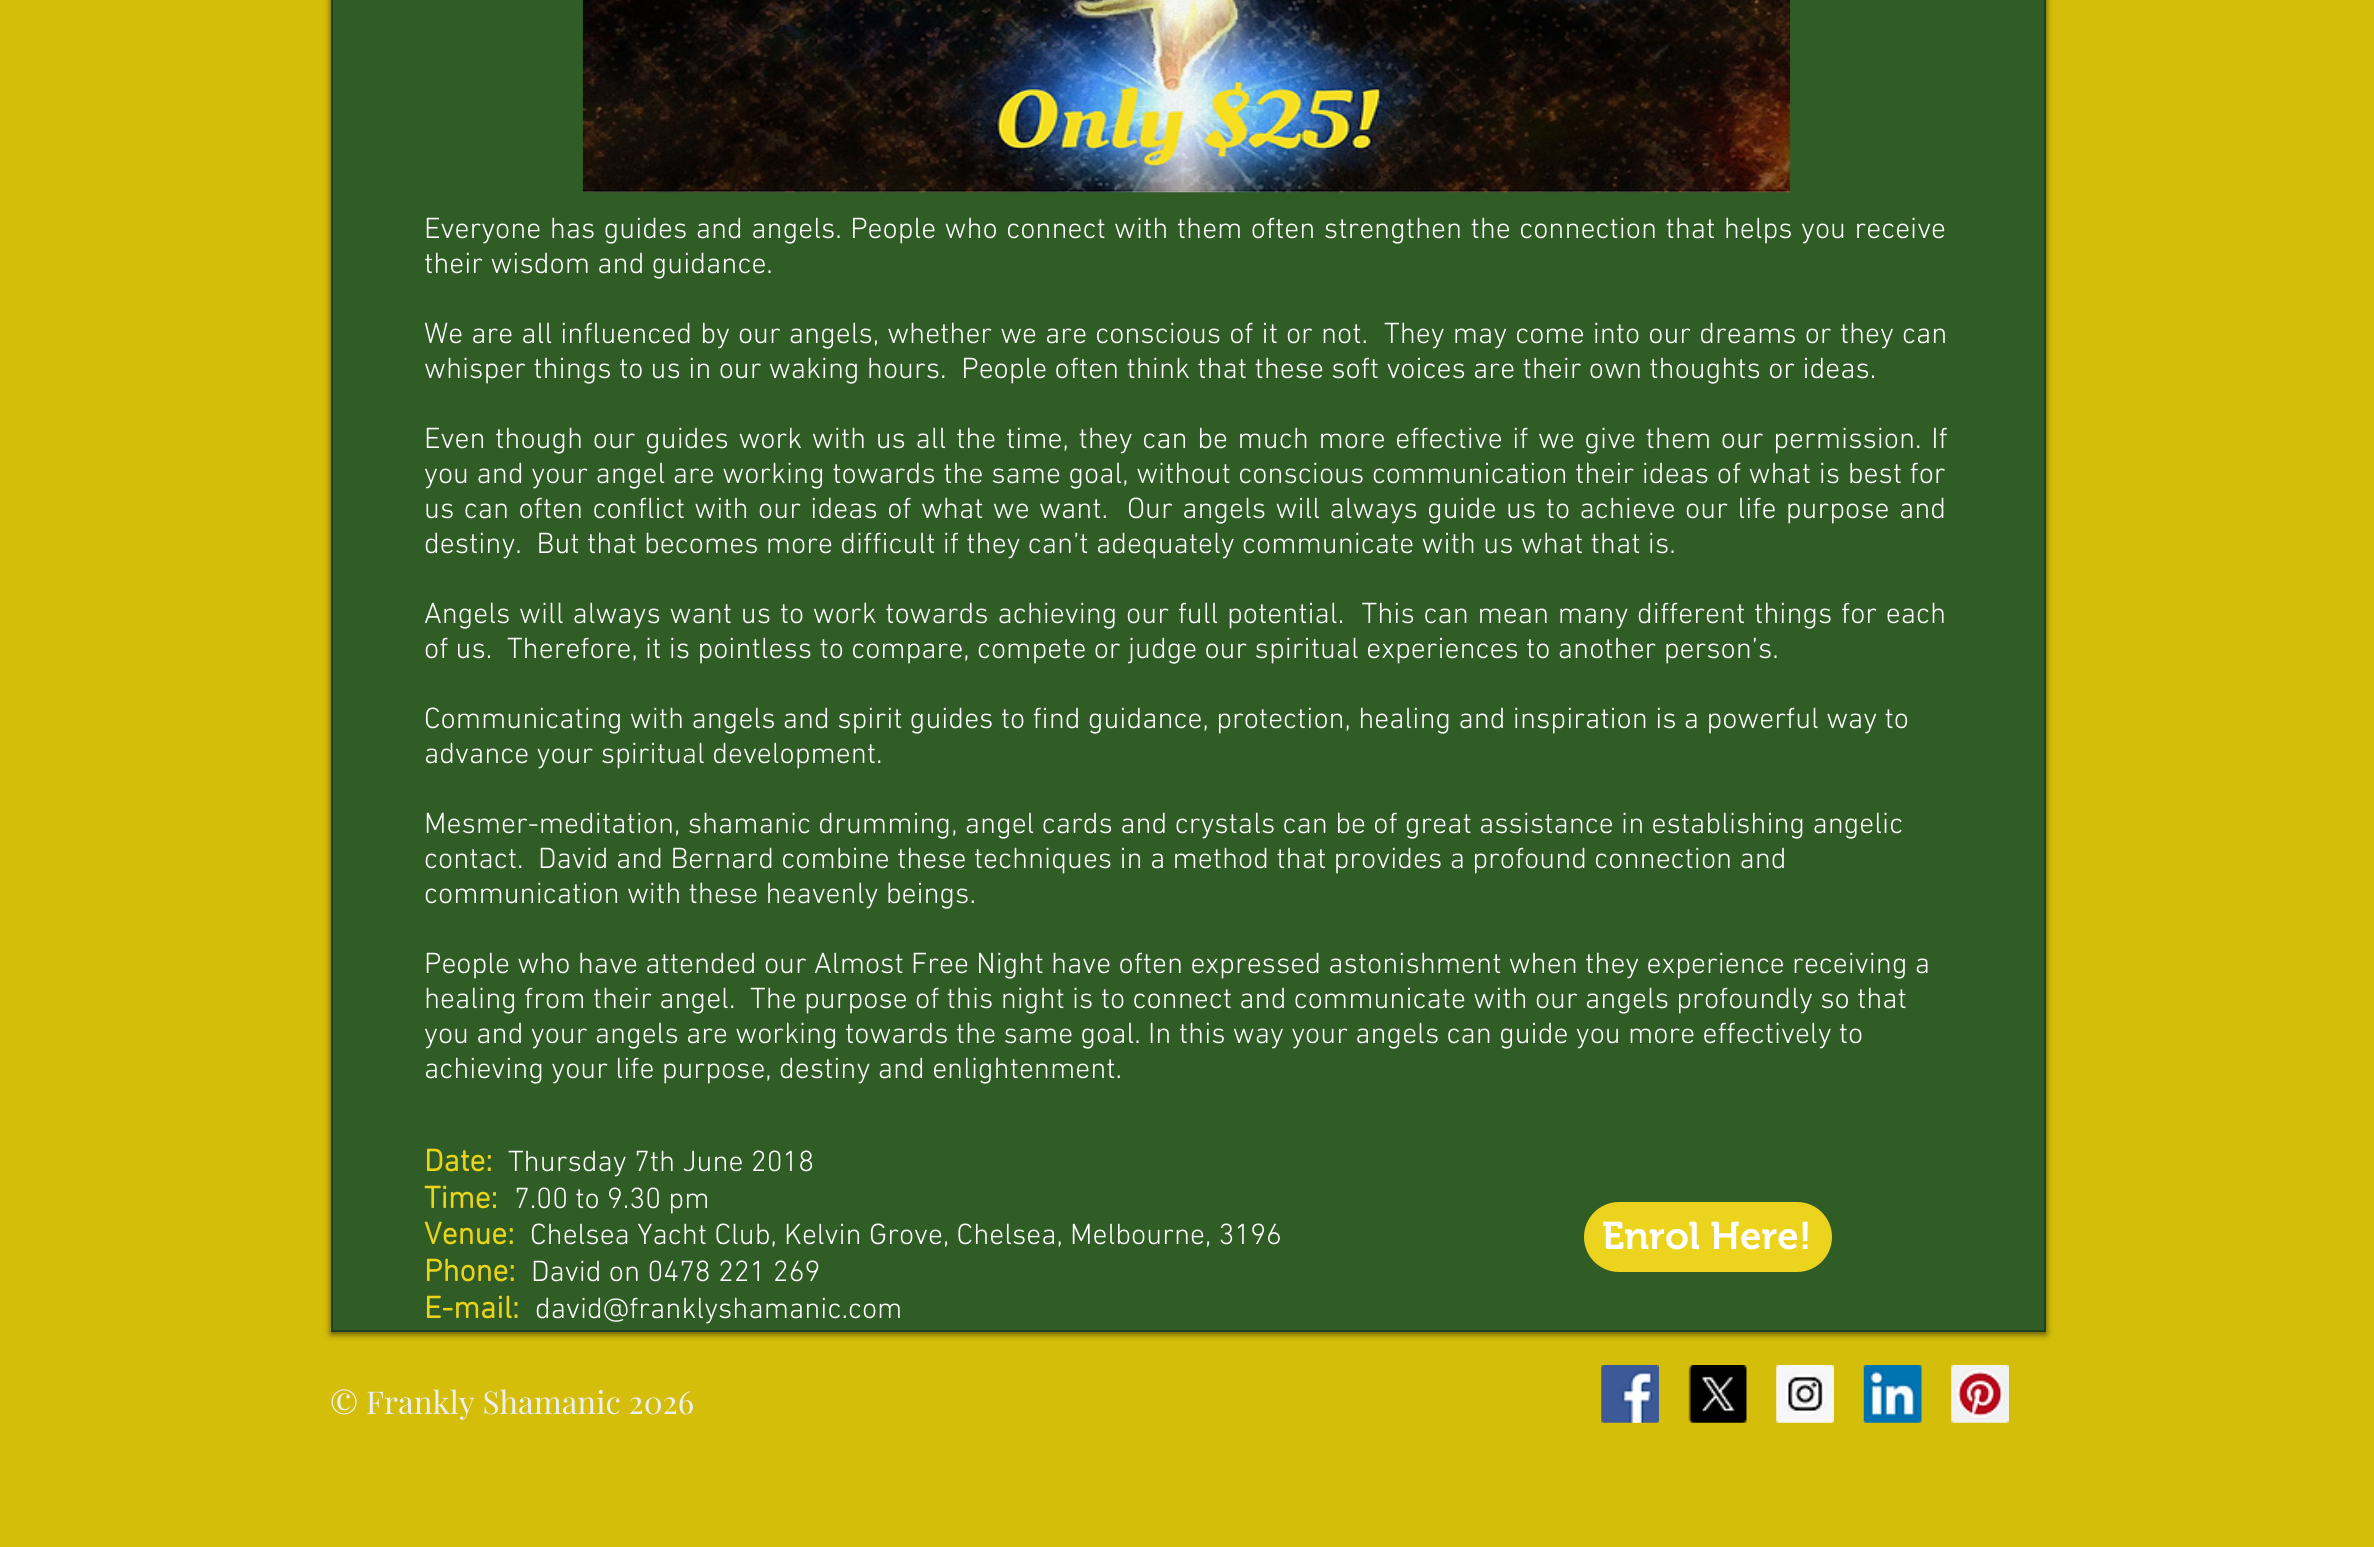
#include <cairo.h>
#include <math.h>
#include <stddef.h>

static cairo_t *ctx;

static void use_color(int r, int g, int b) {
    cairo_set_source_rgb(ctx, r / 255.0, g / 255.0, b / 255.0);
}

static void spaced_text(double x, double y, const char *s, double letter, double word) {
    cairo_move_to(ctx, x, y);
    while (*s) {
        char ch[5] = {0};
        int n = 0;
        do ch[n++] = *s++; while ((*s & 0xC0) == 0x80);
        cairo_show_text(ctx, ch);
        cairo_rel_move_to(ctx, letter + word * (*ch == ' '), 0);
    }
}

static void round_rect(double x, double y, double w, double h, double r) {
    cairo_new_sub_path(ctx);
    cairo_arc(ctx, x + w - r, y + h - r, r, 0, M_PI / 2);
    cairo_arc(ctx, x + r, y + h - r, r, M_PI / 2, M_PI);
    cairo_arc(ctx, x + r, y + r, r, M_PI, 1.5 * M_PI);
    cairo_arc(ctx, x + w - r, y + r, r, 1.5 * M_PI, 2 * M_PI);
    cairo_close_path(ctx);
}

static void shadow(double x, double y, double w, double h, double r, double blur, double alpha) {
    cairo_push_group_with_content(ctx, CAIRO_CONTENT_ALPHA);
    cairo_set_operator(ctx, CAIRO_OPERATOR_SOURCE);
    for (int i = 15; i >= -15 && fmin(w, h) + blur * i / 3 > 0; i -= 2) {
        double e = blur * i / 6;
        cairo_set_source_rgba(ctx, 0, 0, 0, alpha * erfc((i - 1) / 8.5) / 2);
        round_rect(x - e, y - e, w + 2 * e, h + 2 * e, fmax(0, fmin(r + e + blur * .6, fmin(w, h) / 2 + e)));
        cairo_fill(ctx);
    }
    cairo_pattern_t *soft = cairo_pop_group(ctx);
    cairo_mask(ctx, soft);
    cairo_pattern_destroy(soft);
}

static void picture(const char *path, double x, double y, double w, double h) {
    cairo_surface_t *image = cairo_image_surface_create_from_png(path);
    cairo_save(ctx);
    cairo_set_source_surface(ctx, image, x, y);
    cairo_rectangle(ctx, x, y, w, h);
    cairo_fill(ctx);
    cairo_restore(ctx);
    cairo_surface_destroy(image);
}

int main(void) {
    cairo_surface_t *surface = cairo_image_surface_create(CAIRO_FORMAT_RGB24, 2374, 1547);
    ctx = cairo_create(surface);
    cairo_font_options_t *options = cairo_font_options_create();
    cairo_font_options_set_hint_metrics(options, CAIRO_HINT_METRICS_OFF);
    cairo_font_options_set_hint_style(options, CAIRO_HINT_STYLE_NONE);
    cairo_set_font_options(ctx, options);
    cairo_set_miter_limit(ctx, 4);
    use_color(213, 190, 10);
    cairo_paint(ctx);
    cairo_save(ctx);
    cairo_set_fill_rule(ctx, CAIRO_FILL_RULE_EVEN_ODD);
    cairo_new_path(ctx);
    cairo_move_to(ctx, 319, 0);
    cairo_line_to(ctx, 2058, 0);
    cairo_line_to(ctx, 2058, 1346);
    cairo_line_to(ctx, 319, 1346);
    cairo_close_path(ctx);
    cairo_move_to(ctx, 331, -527);
    cairo_line_to(ctx, 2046, -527);
    cairo_line_to(ctx, 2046, 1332);
    cairo_line_to(ctx, 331, 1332);
    cairo_close_path(ctx);
    cairo_clip(ctx);
    use_color(0, 0, 0);
    shadow(331, -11, 1715, 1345, 0, 3.5, 0.6);
    cairo_restore(ctx);
    cairo_set_source_rgba(ctx, 0.118, 0.322, 0.157, 0.9);
    cairo_rectangle(ctx, 332, -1, 1713, 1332);
    cairo_fill_preserve(ctx);
    use_color(28, 66, 35);
    cairo_stroke(ctx);
    picture("img1.png", 582, 0, 1209, 193);
    cairo_select_font_face(ctx, "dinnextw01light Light", CAIRO_FONT_SLANT_NORMAL, CAIRO_FONT_WEIGHT_NORMAL);
    cairo_set_font_size(ctx, 29.75);
    use_color(255, 255, 255);
    spaced_text(424, 238, "Everyone has guides and angels. People who connect with them often strengthen the connection that helps you receive", 0, 1.1);
    cairo_move_to(ctx, 424, 273);
    cairo_show_text(ctx, "their wisdom and guidance.");
    spaced_text(424, 343, "We are all influenced by our angels, whether we are conscious of it or not.  They may come into our dreams or they can", 0, 0.75);
    cairo_move_to(ctx, 424, 378);
    cairo_show_text(ctx, "whisper things to us in our waking hours.  People often think that these soft voices are their own thoughts or ideas.");
    spaced_text(424, 448, "Even though our guides work with us all the time, they can be much more effective if we give them our permission. If", 0, 2.3);
    spaced_text(424, 483, "you and your angel are working towards the same goal, without conscious communication their ideas of what is best for", 0, 0.25);
    spaced_text(424, 518, "us can often conflict with our ideas of what we want.  Our angels will always guide us to achieve our life purpose and", 0, 2.1);
    cairo_move_to(ctx, 424, 553);
    cairo_show_text(ctx, "destiny.  But that becomes more difficult if they can’t adequately communicate with us what that is.");
    spaced_text(424, 623, "Angels will always want us to work towards achieving our full potential.  This can mean many different things for each", 0, 1.4);
    cairo_move_to(ctx, 424, 658);
    cairo_show_text(ctx, "of us.  Therefore, it is pointless to compare, compete or judge our spiritual experiences to another person’s.");
    cairo_move_to(ctx, 424, 728);
    cairo_show_text(ctx, "Communicating with angels and spirit guides to find guidance, protection, healing and inspiration is a powerful way to");
    cairo_move_to(ctx, 424, 763);
    cairo_show_text(ctx, "advance your spiritual development.");
    cairo_move_to(ctx, 424, 833);
    cairo_show_text(ctx, "Mesmer-meditation, shamanic drumming, angel cards and crystals can be of great assistance in establishing angelic");
    cairo_move_to(ctx, 424, 868);
    cairo_show_text(ctx, "contact.  David and Bernard combine these techniques in a method that provides a profound connection and");
    cairo_move_to(ctx, 424, 903);
    cairo_show_text(ctx, "communication with these heavenly beings.");
    cairo_move_to(ctx, 424, 973);
    cairo_show_text(ctx, "People who have attended our Almost Free Night have often expressed astonishment when they experience receiving a");
    cairo_move_to(ctx, 424, 1008);
    cairo_show_text(ctx, "healing from their angel.  The purpose of this night is to connect and communicate with our angels profoundly so that");
    cairo_move_to(ctx, 424, 1043);
    cairo_show_text(ctx, "you and your angels are working towards the same goal. In this way your angels can guide you more effectively to");
    cairo_move_to(ctx, 424, 1078);
    cairo_show_text(ctx, "achieving your life purpose, destiny and enlightenment.");
    cairo_select_font_face(ctx, "dinnextw01light", CAIRO_FONT_SLANT_NORMAL, CAIRO_FONT_WEIGHT_BOLD);
    cairo_set_font_size(ctx, 31.5);
    use_color(235, 211, 28);
    cairo_move_to(ctx, 424, 1171);
    cairo_show_text(ctx, "Date:");
    cairo_select_font_face(ctx, "dinnextw01light Light", CAIRO_FONT_SLANT_NORMAL, CAIRO_FONT_WEIGHT_NORMAL);
    cairo_set_font_size(ctx, 29.75);
    use_color(255, 255, 255);
    cairo_move_to(ctx, 508, 1171);
    cairo_show_text(ctx, "Thursday 7th June 2018");
    cairo_select_font_face(ctx, "dinnextw01light", CAIRO_FONT_SLANT_NORMAL, CAIRO_FONT_WEIGHT_BOLD);
    cairo_set_font_size(ctx, 31.5);
    use_color(235, 211, 28);
    cairo_move_to(ctx, 424, 1208);
    cairo_show_text(ctx, "Time:");
    cairo_select_font_face(ctx, "dinnextw01light Light", CAIRO_FONT_SLANT_NORMAL, CAIRO_FONT_WEIGHT_NORMAL);
    cairo_set_font_size(ctx, 29.75);
    use_color(255, 255, 255);
    cairo_move_to(ctx, 514, 1208);
    cairo_show_text(ctx, "7.00 to 9.30 pm");
    cairo_select_font_face(ctx, "dinnextw01light", CAIRO_FONT_SLANT_NORMAL, CAIRO_FONT_WEIGHT_BOLD);
    cairo_set_font_size(ctx, 31.5);
    use_color(235, 211, 28);
    cairo_move_to(ctx, 424, 1244);
    cairo_show_text(ctx, "Venue:");
    cairo_select_font_face(ctx, "dinnextw01light Light", CAIRO_FONT_SLANT_NORMAL, CAIRO_FONT_WEIGHT_NORMAL);
    cairo_set_font_size(ctx, 29.75);
    use_color(255, 255, 255);
    cairo_move_to(ctx, 530, 1244);
    cairo_show_text(ctx, "Chelsea Yacht Club, Kelvin Grove, Chelsea, Melbourne, 3196");
    cairo_select_font_face(ctx, "dinnextw01light", CAIRO_FONT_SLANT_NORMAL, CAIRO_FONT_WEIGHT_BOLD);
    cairo_set_font_size(ctx, 31.5);
    use_color(235, 211, 28);
    cairo_move_to(ctx, 424, 1281);
    cairo_show_text(ctx, "Phone:");
    cairo_select_font_face(ctx, "dinnextw01light Light", CAIRO_FONT_SLANT_NORMAL, CAIRO_FONT_WEIGHT_NORMAL);
    cairo_set_font_size(ctx, 29.75);
    use_color(255, 255, 255);
    cairo_move_to(ctx, 531, 1281);
    cairo_show_text(ctx, "David on 0478 221 269");
    cairo_select_font_face(ctx, "dinnextw01light", CAIRO_FONT_SLANT_NORMAL, CAIRO_FONT_WEIGHT_BOLD);
    cairo_set_font_size(ctx, 31.5);
    use_color(235, 211, 28);
    cairo_move_to(ctx, 424, 1318);
    cairo_show_text(ctx, "E-mail:");
    cairo_select_font_face(ctx, "dinnextw01light Light", CAIRO_FONT_SLANT_NORMAL, CAIRO_FONT_WEIGHT_NORMAL);
    cairo_set_font_size(ctx, 29.75);
    use_color(255, 255, 255);
    cairo_move_to(ctx, 535, 1318);
    cairo_show_text(ctx, "david@franklyshamanic.com");
    use_color(235, 211, 30);
    round_rect(1584, 1202, 248, 70, 35);
    cairo_fill(ctx);
    cairo_select_font_face(ctx, "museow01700 SemiBold", CAIRO_FONT_SLANT_NORMAL, CAIRO_FONT_WEIGHT_NORMAL);
    cairo_set_font_size(ctx, 38.5);
    use_color(255, 255, 255);
    cairo_move_to(ctx, 1602, 1249);
    cairo_show_text(ctx, "Enrol Here!");
    cairo_select_font_face(ctx, "Playfair Display", CAIRO_FONT_SLANT_NORMAL, CAIRO_FONT_WEIGHT_NORMAL);
    cairo_set_font_size(ctx, 31.5);
    use_color(236, 240, 245);
    cairo_move_to(ctx, 330, 1414);
    cairo_show_text(ctx, "© Frankly Shamanic 2026");
    picture("img2.png", 1601, 1365, 58, 58);
    picture("img3.png", 1688, 1365, 59, 58);
    picture("img4.png", 1776, 1365, 58, 58);
    picture("img5.png", 1863, 1365, 59, 58);
    picture("img6.png", 1951, 1365, 58, 58);
    cairo_surface_write_to_png(surface, "result.png");
    cairo_font_options_destroy(options);
    cairo_destroy(ctx);
    cairo_surface_destroy(surface);
    return 0;
}
